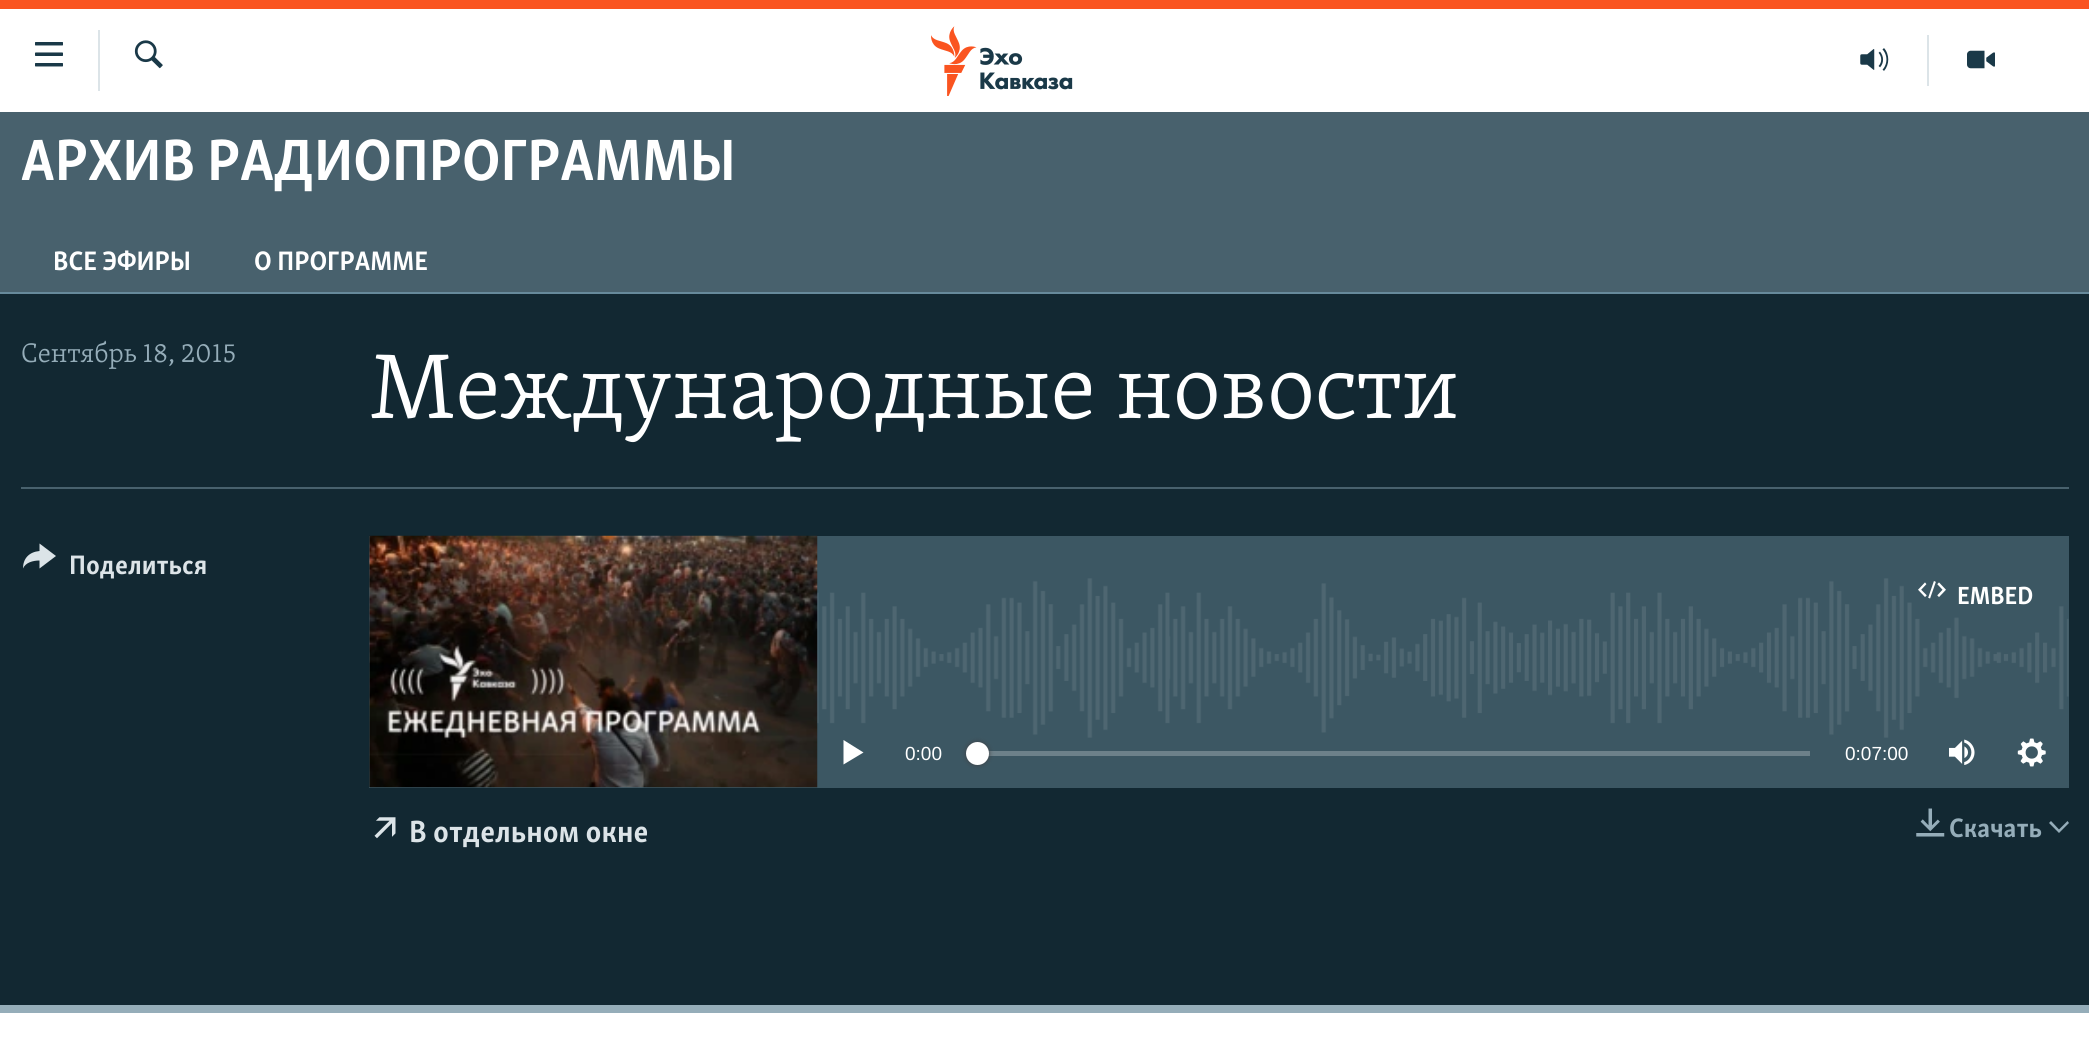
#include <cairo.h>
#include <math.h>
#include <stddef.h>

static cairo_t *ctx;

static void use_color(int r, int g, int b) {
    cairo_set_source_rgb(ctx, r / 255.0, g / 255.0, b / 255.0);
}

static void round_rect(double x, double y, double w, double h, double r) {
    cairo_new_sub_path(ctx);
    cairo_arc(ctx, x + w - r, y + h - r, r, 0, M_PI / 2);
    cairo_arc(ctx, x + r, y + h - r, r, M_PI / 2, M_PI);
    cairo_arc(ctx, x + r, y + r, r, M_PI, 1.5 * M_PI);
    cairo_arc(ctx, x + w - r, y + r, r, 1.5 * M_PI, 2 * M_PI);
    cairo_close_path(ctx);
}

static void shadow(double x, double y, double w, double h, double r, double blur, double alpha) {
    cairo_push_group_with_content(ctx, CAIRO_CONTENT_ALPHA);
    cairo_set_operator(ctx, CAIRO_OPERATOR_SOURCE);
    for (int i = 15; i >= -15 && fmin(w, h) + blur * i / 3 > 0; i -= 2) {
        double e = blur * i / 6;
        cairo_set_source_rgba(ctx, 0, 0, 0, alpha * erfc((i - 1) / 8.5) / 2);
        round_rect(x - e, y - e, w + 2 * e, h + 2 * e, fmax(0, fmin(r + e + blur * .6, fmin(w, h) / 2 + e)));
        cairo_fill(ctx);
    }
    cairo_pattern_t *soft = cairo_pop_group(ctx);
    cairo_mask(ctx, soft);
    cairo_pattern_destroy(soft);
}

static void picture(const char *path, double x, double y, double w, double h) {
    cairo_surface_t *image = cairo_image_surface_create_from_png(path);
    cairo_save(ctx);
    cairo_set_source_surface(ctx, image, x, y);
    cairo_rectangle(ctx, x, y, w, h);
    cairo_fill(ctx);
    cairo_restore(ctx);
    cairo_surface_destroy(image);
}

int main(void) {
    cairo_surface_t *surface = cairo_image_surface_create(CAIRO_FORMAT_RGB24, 2089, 1040);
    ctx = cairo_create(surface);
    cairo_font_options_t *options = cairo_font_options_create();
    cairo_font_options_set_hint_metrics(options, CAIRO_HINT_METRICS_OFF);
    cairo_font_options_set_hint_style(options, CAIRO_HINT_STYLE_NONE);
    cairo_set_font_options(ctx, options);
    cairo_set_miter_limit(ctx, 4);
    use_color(255, 255, 255);
    cairo_paint(ctx);
    use_color(250, 84, 32);
    cairo_rectangle(ctx, 0, 0, 2089, 9);
    cairo_fill(ctx);
    picture("img1.png", 35, 42, 28, 25);
    use_color(220, 228, 232);
    cairo_rectangle(ctx, 98, 30, 2, 61);
    cairo_fill(ctx);
    picture("img2.png", 134, 40, 29, 29);
    picture("img3.png", 931, 26, 142, 70);
    cairo_rectangle(ctx, 1927, 35, 2, 51);
    cairo_fill(ctx);
    picture("img4.png", 1860, 48, 29, 23);
    picture("img5.png", 1967, 50, 28, 19);
    use_color(72, 97, 109);
    cairo_rectangle(ctx, 0, 112, 2089, 180);
    cairo_fill(ctx);
    cairo_select_font_face(ctx, "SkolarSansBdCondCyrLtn", CAIRO_FONT_SLANT_NORMAL, CAIRO_FONT_WEIGHT_BOLD);
    cairo_set_font_size(ctx, 59.8);
    use_color(255, 255, 255);
    cairo_move_to(ctx, 21, 180);
    cairo_show_text(ctx, "АРХИВ РАДИОПРОГРАММЫ");
    cairo_set_font_size(ctx, 27.5);
    cairo_move_to(ctx, 53, 270);
    cairo_show_text(ctx, "ВСЕ ЭФИРЫ");
    cairo_move_to(ctx, 254, 270);
    cairo_show_text(ctx, "О ПРОГРАММЕ");
    use_color(18, 40, 50);
    cairo_rectangle(ctx, 0, 294, 2089, 711);
    cairo_fill(ctx);
    use_color(103, 138, 155);
    cairo_rectangle(ctx, 0, 292, 2089, 2);
    cairo_fill(ctx);
    use_color(149, 173, 185);
    cairo_rectangle(ctx, 0, 1005, 2089, 8);
    cairo_fill(ctx);
    cairo_select_font_face(ctx, "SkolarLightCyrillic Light", CAIRO_FONT_SLANT_NORMAL, CAIRO_FONT_WEIGHT_NORMAL);
    cairo_move_to(ctx, 21, 362);
    cairo_show_text(ctx, "Сентябрь 18, 2015");
    cairo_set_font_size(ctx, 94.5);
    use_color(255, 255, 255);
    cairo_move_to(ctx, 369, 418);
    cairo_show_text(ctx, "Международные новости");
    use_color(72, 97, 109);
    cairo_rectangle(ctx, 21, 487, 2048, 2);
    cairo_fill(ctx);
    use_color(220, 228, 232);
    cairo_new_path(ctx);
    cairo_move_to(ctx, 23, 568.5);
    cairo_curve_to(ctx, 23, 558.5, 29, 552, 39.5, 551);
    cairo_line_to(ctx, 39.5, 543.5);
    cairo_line_to(ctx, 56, 556);
    cairo_line_to(ctx, 39.5, 568.5);
    cairo_line_to(ctx, 39.5, 560.5);
    cairo_curve_to(ctx, 33, 560.5, 25.5, 562.5, 23, 568.5);
    cairo_close_path(ctx);
    cairo_fill(ctx);
    cairo_select_font_face(ctx, "SkolarSansBdCondCyrLtn", CAIRO_FONT_SLANT_NORMAL, CAIRO_FONT_WEIGHT_BOLD);
    cairo_set_font_size(ctx, 27.5);
    cairo_move_to(ctx, 69, 574);
    cairo_show_text(ctx, "Поделиться");
    use_color(60, 87, 99);
    cairo_rectangle(ctx, 369, 536, 1700, 252);
    cairo_fill(ctx);
    picture("img6.png", 369, 578, 1700, 160);
    picture("img7.png", 369, 535, 449, 253);
    picture("img8.png", 1918, 581, 28, 18);
    cairo_set_font_size(ctx, 25.5);
    use_color(255, 255, 255);
    cairo_move_to(ctx, 1957, 604);
    cairo_show_text(ctx, "EMBED");
    cairo_new_path(ctx);
    cairo_move_to(ctx, 843.5, 764.5);
    cairo_line_to(ctx, 863.5, 752.5);
    cairo_line_to(ctx, 843.5, 740);
    cairo_close_path(ctx);
    cairo_fill(ctx);
    cairo_select_font_face(ctx, "Liberation Sans", CAIRO_FONT_SLANT_NORMAL, CAIRO_FONT_WEIGHT_NORMAL);
    cairo_set_font_size(ctx, 19);
    cairo_move_to(ctx, 905, 760);
    cairo_show_text(ctx, "0:00");
    use_color(109, 129, 138);
    cairo_rectangle(ctx, 988, 751, 822, 5);
    cairo_fill(ctx);
    use_color(65, 65, 68);
    shadow(966, 742, 23, 23, 11.5, 2.5, 1);
    use_color(255, 255, 255);
    cairo_arc(ctx, 977.5, 753.5, 11.5, 0, 2 * M_PI);
    cairo_fill(ctx);
    cairo_move_to(ctx, 1845, 760);
    cairo_show_text(ctx, "0:07:00");
    picture("img9.png", 1949, 739, 26, 26);
    picture("img10.png", 2017, 738, 29, 29);
    picture("img11.png", 374, 817, 22, 22);
    cairo_select_font_face(ctx, "SkolarSansBdCondCyrLtn", CAIRO_FONT_SLANT_NORMAL, CAIRO_FONT_WEIGHT_BOLD);
    cairo_set_font_size(ctx, 31.5);
    use_color(220, 228, 232);
    cairo_move_to(ctx, 409, 842);
    cairo_show_text(ctx, "В отдельном окне");
    picture("img12.png", 1916, 808, 29, 29);
    cairo_set_font_size(ctx, 27.5);
    use_color(149, 173, 185);
    cairo_move_to(ctx, 1949, 837);
    cairo_show_text(ctx, "Скачать");
    cairo_new_path(ctx);
    cairo_move_to(ctx, 2049, 823);
    cairo_line_to(ctx, 2059, 833);
    cairo_line_to(ctx, 2069, 823);
    cairo_line_to(ctx, 2067.5, 821);
    cairo_line_to(ctx, 2059, 829.5);
    cairo_line_to(ctx, 2051, 821);
    cairo_close_path(ctx);
    cairo_fill(ctx);
    cairo_surface_write_to_png(surface, "result.png");
    cairo_font_options_destroy(options);
    cairo_destroy(ctx);
    cairo_surface_destroy(surface);
    return 0;
}
